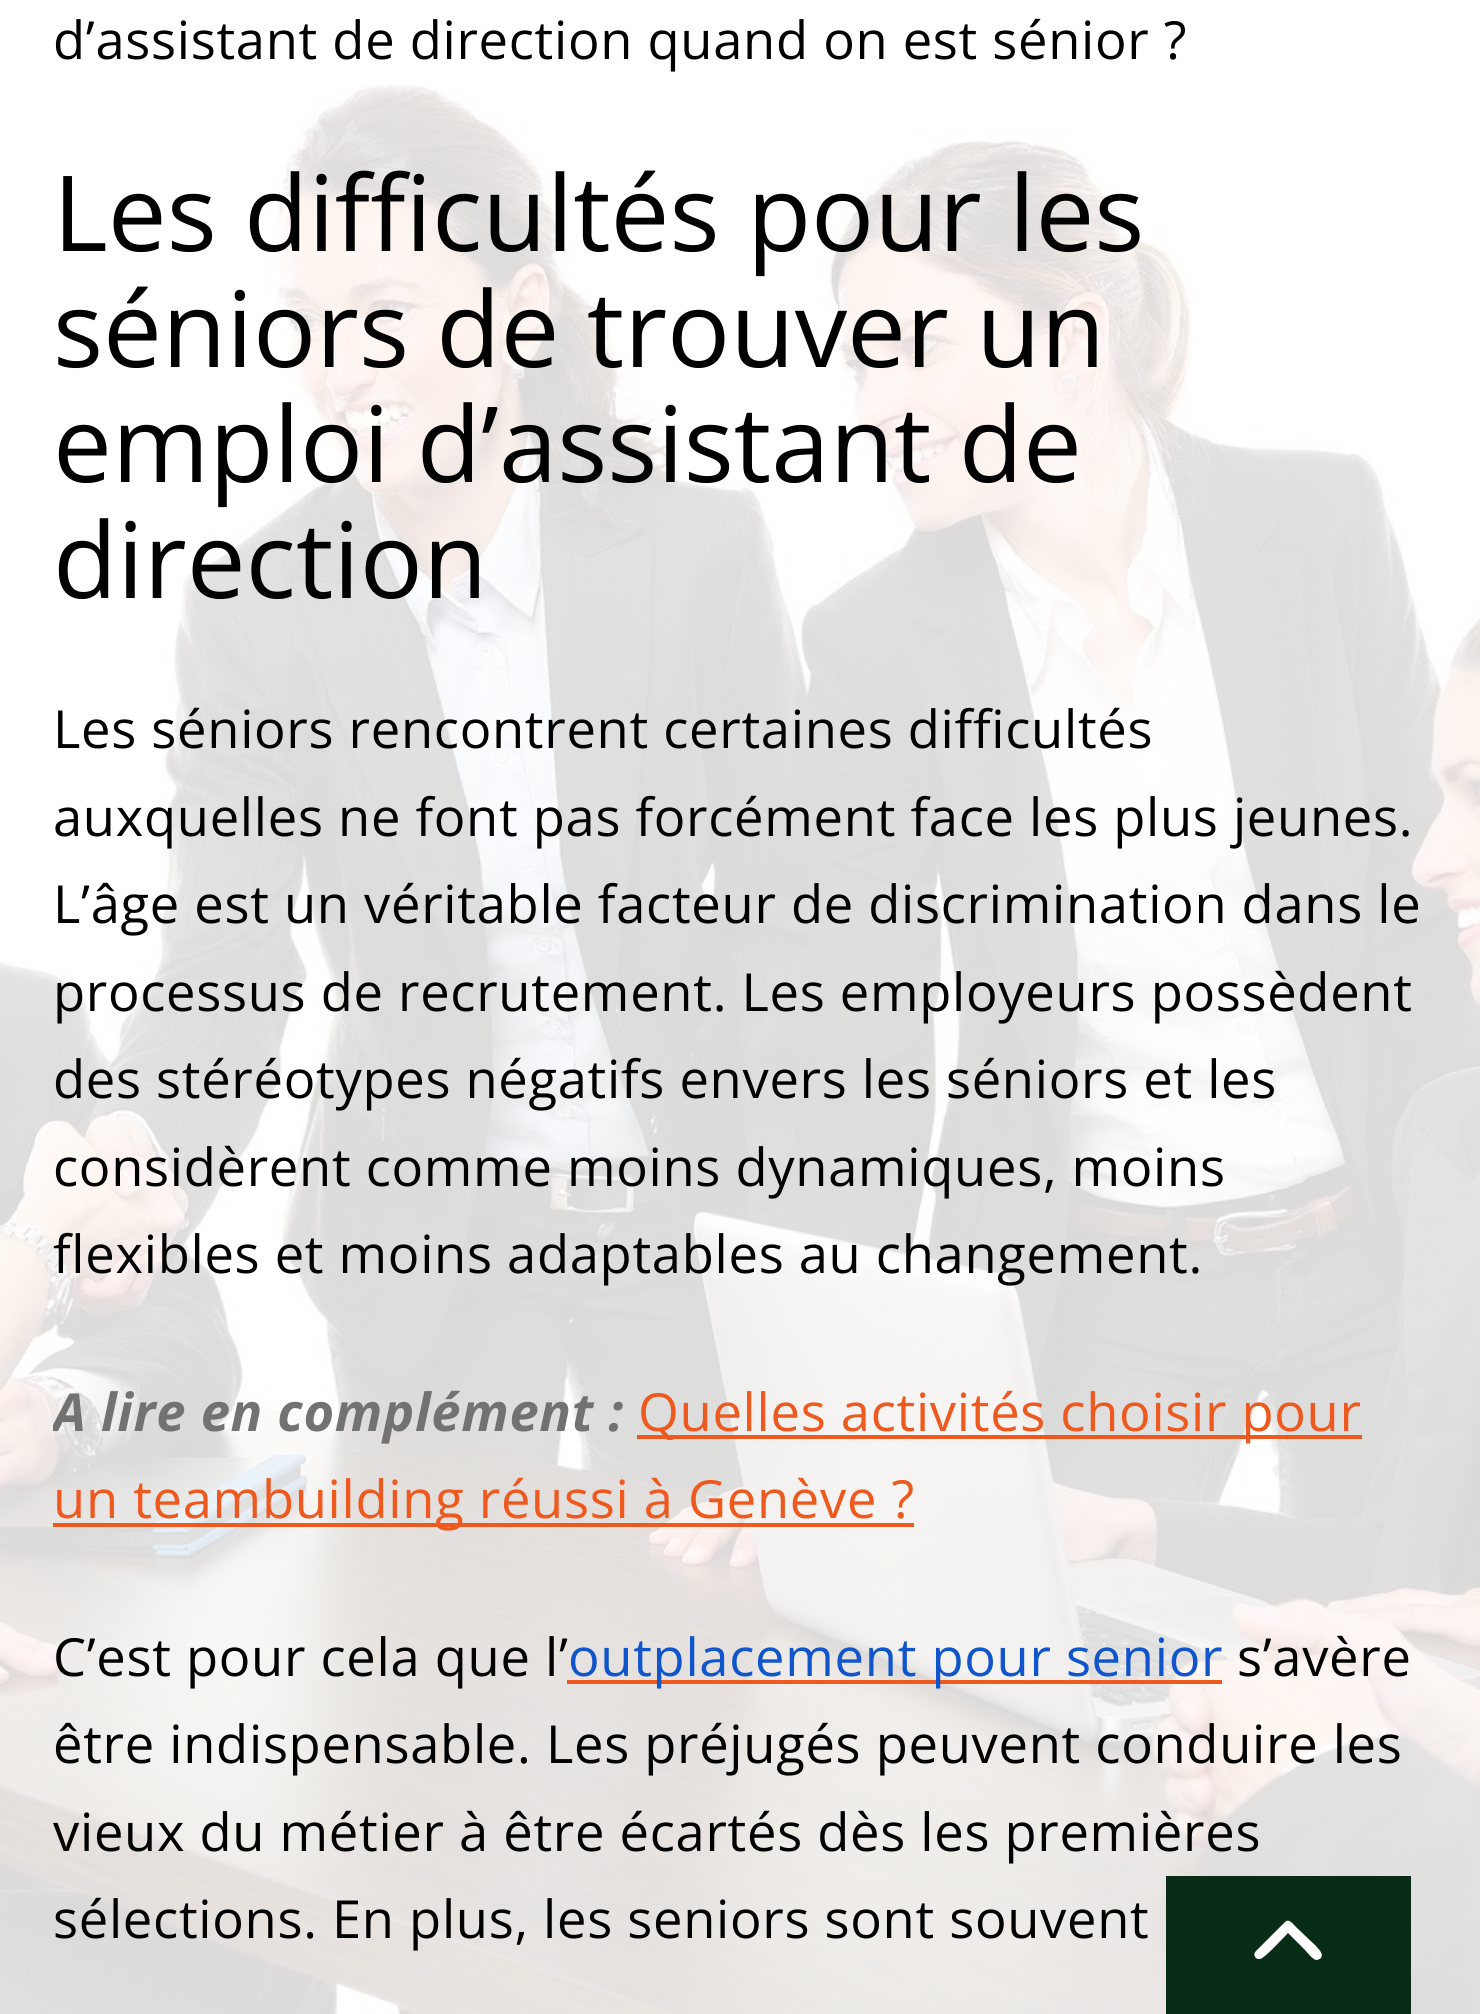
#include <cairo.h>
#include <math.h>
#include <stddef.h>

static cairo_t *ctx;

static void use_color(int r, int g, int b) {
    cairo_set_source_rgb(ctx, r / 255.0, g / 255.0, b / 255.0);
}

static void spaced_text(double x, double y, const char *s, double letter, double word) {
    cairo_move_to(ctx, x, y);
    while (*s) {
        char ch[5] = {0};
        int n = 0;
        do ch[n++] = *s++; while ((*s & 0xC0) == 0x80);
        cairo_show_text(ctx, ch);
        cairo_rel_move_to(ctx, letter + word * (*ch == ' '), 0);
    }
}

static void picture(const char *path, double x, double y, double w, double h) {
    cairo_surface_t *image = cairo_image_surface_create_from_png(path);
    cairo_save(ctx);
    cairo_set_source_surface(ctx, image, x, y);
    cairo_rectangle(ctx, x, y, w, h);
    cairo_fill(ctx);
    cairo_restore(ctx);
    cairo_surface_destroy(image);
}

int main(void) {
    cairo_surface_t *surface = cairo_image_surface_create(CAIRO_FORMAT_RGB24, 1480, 2014);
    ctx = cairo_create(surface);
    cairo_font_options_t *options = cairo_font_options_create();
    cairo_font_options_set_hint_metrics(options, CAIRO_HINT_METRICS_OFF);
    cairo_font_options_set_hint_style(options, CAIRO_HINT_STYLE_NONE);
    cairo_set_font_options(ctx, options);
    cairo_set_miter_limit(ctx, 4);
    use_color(255, 255, 255);
    cairo_paint(ctx);
    picture("img1.png", 0, 84, 1480, 1930);
    cairo_select_font_face(ctx, "Open Sans", CAIRO_FONT_SLANT_NORMAL, CAIRO_FONT_WEIGHT_NORMAL);
    cairo_set_font_size(ctx, 52.5);
    use_color(0, 0, 0);
    spaced_text(53, 59, "d’assistant de direction quand on est sénior ?", 0.7, 0);
    cairo_set_font_size(ctx, 105);
    cairo_move_to(ctx, 53, 251);
    cairo_show_text(ctx, "Les difficultés pour les");
    cairo_move_to(ctx, 53, 367);
    cairo_show_text(ctx, "séniors de trouver un");
    cairo_move_to(ctx, 53, 482);
    cairo_show_text(ctx, "emploi d’assistant de");
    cairo_move_to(ctx, 53, 598);
    cairo_show_text(ctx, "direction");
    cairo_set_font_size(ctx, 52.5);
    spaced_text(53, 748, "Les séniors rencontrent certaines difficultés", 0.7, 0);
    spaced_text(53, 836, "auxquelles ne font pas forcément face les plus jeunes.", 0.7, 0);
    spaced_text(53, 923, "L’âge est un véritable facteur de discrimination dans le", 0.7, 0);
    spaced_text(53, 1011, "processus de recrutement. Les employeurs possèdent", 0.7, 0);
    spaced_text(53, 1098, "des stéréotypes négatifs envers les séniors et les", 0.7, 0);
    spaced_text(53, 1186, "considèrent comme moins dynamiques, moins", 0.7, 0);
    spaced_text(53, 1273, "flexibles et moins adaptables au changement.", 0.7, 0);
    cairo_save(ctx);
    cairo_rectangle(ctx, 53, 0, 1375, 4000);
    cairo_clip(ctx);
    cairo_select_font_face(ctx, "Open Sans", CAIRO_FONT_SLANT_ITALIC, CAIRO_FONT_WEIGHT_BOLD);
    use_color(114, 114, 114);
    spaced_text(53, 1431, "A lire en complément :", 0.7, 0);
    cairo_restore(ctx);
    use_color(238, 89, 31);
    cairo_rectangle(ctx, 637, 1435, 725, 4);
    cairo_fill(ctx);
    spaced_text(638, 1431, "Quelles activités choisir pour", 0.7, 0);
    cairo_rectangle(ctx, 53, 1523, 861, 4);
    cairo_fill(ctx);
    spaced_text(53, 1518, "un teambuilding réussi à Genève ?", 0.7, 0);
    use_color(0, 0, 0);
    spaced_text(53, 1676, "C’est pour cela que l’", 0.7, 0);
    use_color(238, 89, 31);
    cairo_rectangle(ctx, 567, 1680, 655, 4);
    cairo_fill(ctx);
    use_color(17, 85, 204);
    spaced_text(568, 1676, "outplacement pour senior", 0.7, 0);
    use_color(0, 0, 0);
    spaced_text(1237, 1676, "s’avère", 0.7, 0);
    spaced_text(53, 1763, "être indispensable. Les préjugés peuvent conduire les", 0.7, 0);
    spaced_text(53, 1851, "vieux du métier à être écartés dès les premières", 0.7, 0);
    spaced_text(53, 1938, "sélections. En plus, les seniors sont souvent", 0.7, 0);
    use_color(8, 44, 22);
    cairo_rectangle(ctx, 1166, 1876, 245, 138);
    cairo_fill(ctx);
    use_color(255, 255, 255);
    cairo_new_path(ctx);
    cairo_move_to(ctx, 1285, 1922);
    cairo_curve_to(ctx, 1289, 1918, 1293, 1924, 1296, 1927);
    cairo_line_to(ctx, 1316, 1946);
    cairo_curve_to(ctx, 1318, 1949, 1324, 1953, 1321, 1958);
    cairo_curve_to(ctx, 1320, 1959, 1318, 1960, 1316, 1960);
    cairo_curve_to(ctx, 1312, 1959, 1307, 1952, 1305, 1950);
    cairo_line_to(ctx, 1288, 1933);
    cairo_curve_to(ctx, 1284, 1937, 1264, 1959, 1260, 1959);
    cairo_curve_to(ctx, 1256, 1960, 1252, 1955, 1256, 1951);
    cairo_close_path(ctx);
    cairo_fill(ctx);
    cairo_surface_write_to_png(surface, "result.png");
    cairo_font_options_destroy(options);
    cairo_destroy(ctx);
    cairo_surface_destroy(surface);
    return 0;
}
